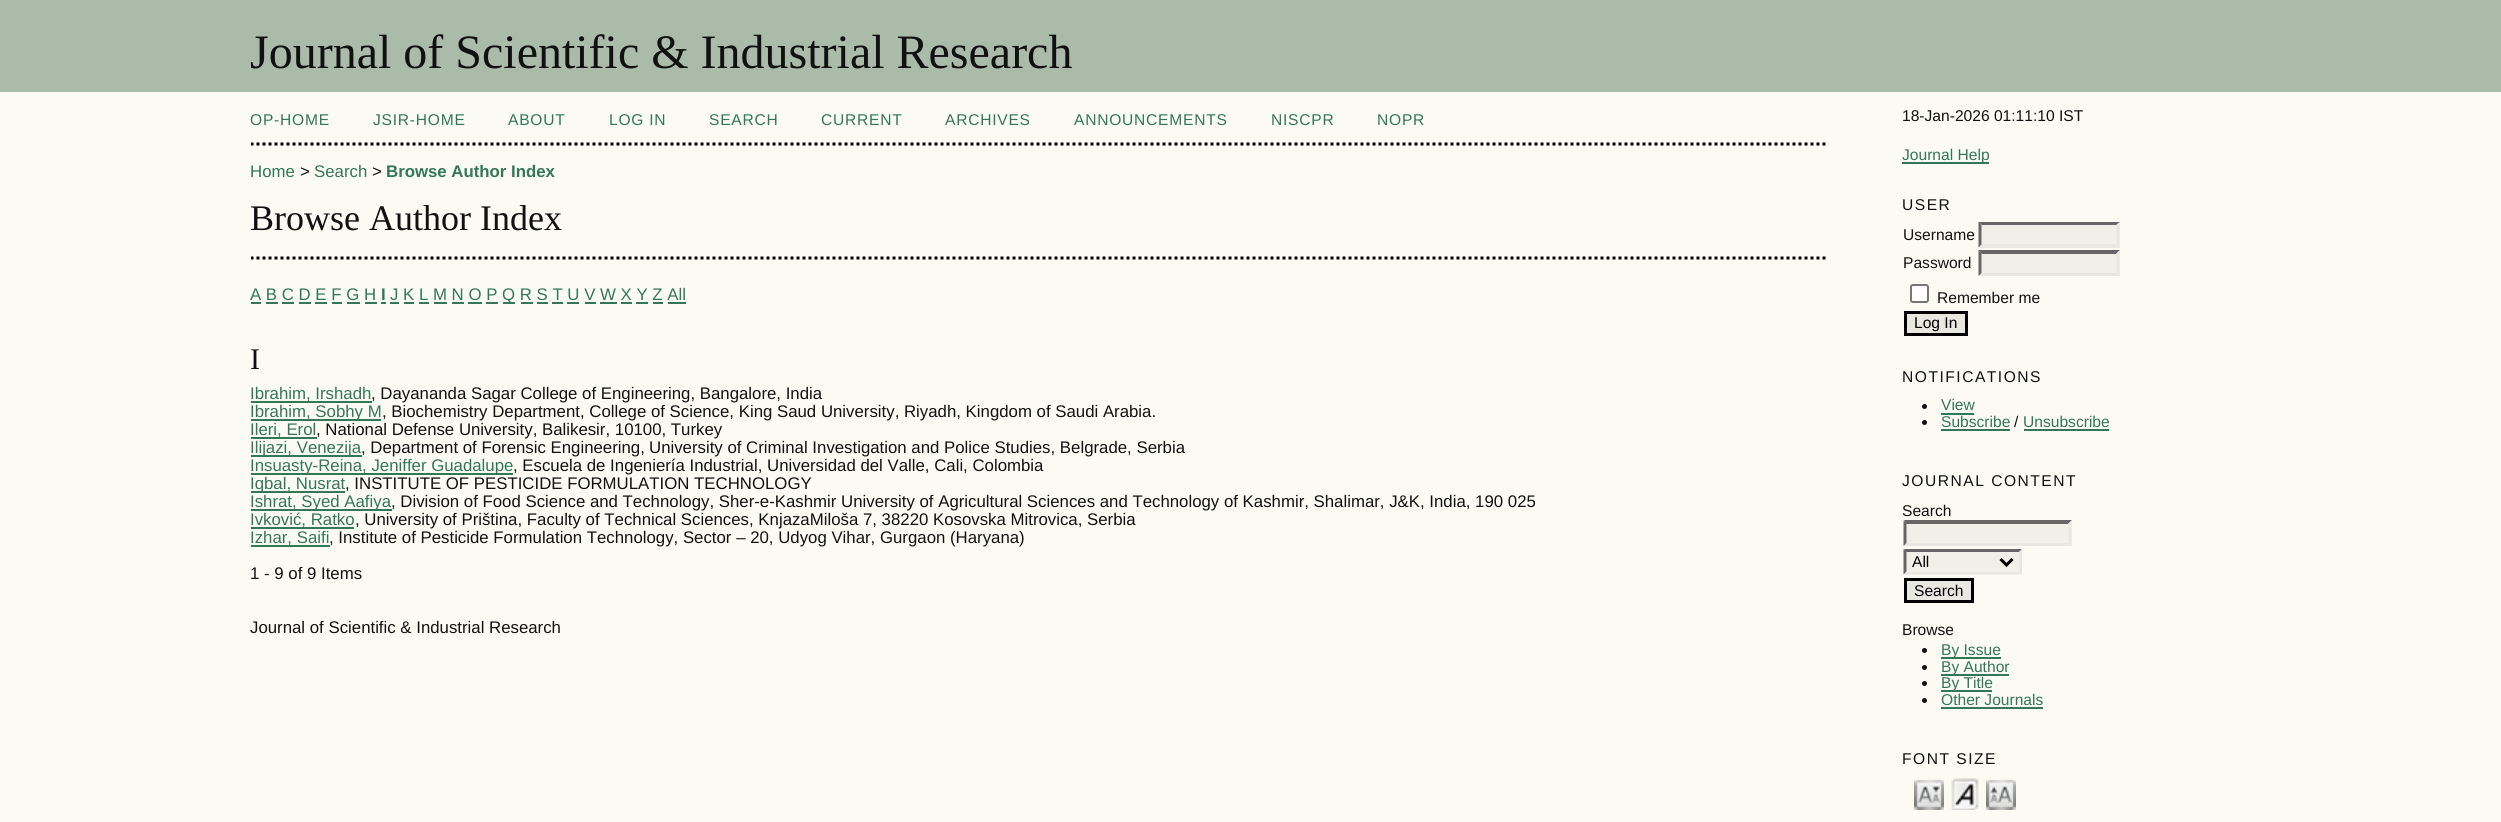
#include <cairo.h>
#include <math.h>
#include <stddef.h>

static cairo_t *ctx;

static void use_color(int r, int g, int b) {
    cairo_set_source_rgb(ctx, r / 255.0, g / 255.0, b / 255.0);
}

static void spaced_text(double x, double y, const char *s, double letter, double word) {
    cairo_move_to(ctx, x, y);
    while (*s) {
        char ch[5] = {0};
        int n = 0;
        do ch[n++] = *s++; while ((*s & 0xC0) == 0x80);
        cairo_show_text(ctx, ch);
        cairo_rel_move_to(ctx, letter + word * (*ch == ' '), 0);
    }
}

static void round_rect(double x, double y, double w, double h, double r) {
    cairo_new_sub_path(ctx);
    cairo_arc(ctx, x + w - r, y + h - r, r, 0, M_PI / 2);
    cairo_arc(ctx, x + r, y + h - r, r, M_PI / 2, M_PI);
    cairo_arc(ctx, x + r, y + r, r, M_PI, 1.5 * M_PI);
    cairo_arc(ctx, x + w - r, y + r, r, 1.5 * M_PI, 2 * M_PI);
    cairo_close_path(ctx);
}

static void picture(const char *path, double x, double y, double w, double h) {
    cairo_surface_t *image = cairo_image_surface_create_from_png(path);
    cairo_save(ctx);
    cairo_set_source_surface(ctx, image, x, y);
    cairo_rectangle(ctx, x, y, w, h);
    cairo_fill(ctx);
    cairo_restore(ctx);
    cairo_surface_destroy(image);
}

int main(void) {
    cairo_surface_t *surface = cairo_image_surface_create(CAIRO_FORMAT_RGB24, 2501, 822);
    ctx = cairo_create(surface);
    cairo_font_options_t *options = cairo_font_options_create();
    cairo_font_options_set_hint_metrics(options, CAIRO_HINT_METRICS_OFF);
    cairo_font_options_set_hint_style(options, CAIRO_HINT_STYLE_NONE);
    cairo_set_font_options(ctx, options);
    cairo_set_miter_limit(ctx, 4);
    use_color(251, 251, 243);
    cairo_paint(ctx);
    use_color(170, 187, 170);
    cairo_rectangle(ctx, 0, 0, 2501, 92);
    cairo_fill(ctx);
    cairo_select_font_face(ctx, "Liberation Serif", CAIRO_FONT_SLANT_NORMAL, CAIRO_FONT_WEIGHT_NORMAL);
    cairo_set_font_size(ctx, 48);
    use_color(17, 17, 17);
    cairo_move_to(ctx, 250, 68);
    cairo_show_text(ctx, "Journal of Scientific & Industrial Research");
    cairo_save(ctx);
    cairo_rectangle(ctx, 251, 92, 1576, 592);
    cairo_clip(ctx);
    cairo_new_path(ctx);
    cairo_move_to(ctx, 250.5, 144);
    cairo_line_to(ctx, 1827, 144);
    use_color(0, 0, 0);
    cairo_set_line_width(ctx, 3);
    cairo_set_dash(ctx, (double[]){3, 3}, 2, 0);
    cairo_stroke(ctx);
    cairo_restore(ctx);
    cairo_select_font_face(ctx, "Liberation Sans", CAIRO_FONT_SLANT_NORMAL, CAIRO_FONT_WEIGHT_NORMAL);
    cairo_set_font_size(ctx, 15.6);
    use_color(51, 119, 85);
    spaced_text(250, 125, "OP-HOME", 0.75, 0);
    spaced_text(373, 125, "JSIR-HOME", 0.75, 0);
    spaced_text(508, 125, "ABOUT", 0.75, 0);
    spaced_text(609, 125, "LOG IN", 0.75, 0);
    spaced_text(709, 125, "SEARCH", 0.75, 0);
    spaced_text(821, 125, "CURRENT", 0.75, 0);
    spaced_text(945, 125, "ARCHIVES", 0.75, 0);
    spaced_text(1074, 125, "ANNOUNCEMENTS", 0.75, 0);
    spaced_text(1271, 125, "NISCPR", 0.75, 0);
    spaced_text(1377, 125, "NOPR", 0.75, 0);
    cairo_set_font_size(ctx, 16.8);
    cairo_move_to(ctx, 250, 177);
    cairo_show_text(ctx, "Home");
    use_color(17, 17, 17);
    cairo_move_to(ctx, 300, 177);
    cairo_show_text(ctx, ">");
    use_color(51, 119, 85);
    cairo_move_to(ctx, 314, 177);
    cairo_show_text(ctx, "Search");
    use_color(17, 17, 17);
    cairo_move_to(ctx, 372, 177);
    cairo_show_text(ctx, ">");
    cairo_select_font_face(ctx, "Liberation Sans", CAIRO_FONT_SLANT_NORMAL, CAIRO_FONT_WEIGHT_BOLD);
    use_color(51, 119, 85);
    cairo_move_to(ctx, 386, 177);
    cairo_show_text(ctx, "Browse Author Index");
    cairo_select_font_face(ctx, "Liberation Serif", CAIRO_FONT_SLANT_NORMAL, CAIRO_FONT_WEIGHT_NORMAL);
    cairo_set_font_size(ctx, 36);
    use_color(17, 17, 17);
    cairo_move_to(ctx, 250, 230);
    cairo_show_text(ctx, "Browse Author Index");
    cairo_save(ctx);
    cairo_rectangle(ctx, 251, 92, 1576, 592);
    cairo_clip(ctx);
    cairo_new_path(ctx);
    cairo_move_to(ctx, 250.5, 258);
    cairo_line_to(ctx, 1827, 258);
    use_color(0, 0, 0);
    cairo_set_line_width(ctx, 3);
    cairo_set_dash(ctx, (double[]){3, 3}, 2, 0);
    cairo_stroke(ctx);
    cairo_restore(ctx);
    cairo_select_font_face(ctx, "Liberation Sans", CAIRO_FONT_SLANT_NORMAL, CAIRO_FONT_WEIGHT_NORMAL);
    cairo_set_font_size(ctx, 16.8);
    use_color(51, 119, 85);
    cairo_move_to(ctx, 250, 300);
    cairo_show_text(ctx, "A B C D E F G H");
    cairo_rectangle(ctx, 251, 302, 10, 2);
    cairo_fill(ctx);
    cairo_select_font_face(ctx, "Liberation Sans", CAIRO_FONT_SLANT_NORMAL, CAIRO_FONT_WEIGHT_BOLD);
    cairo_move_to(ctx, 381, 300);
    cairo_show_text(ctx, "I");
    cairo_rectangle(ctx, 381, 302, 5, 2);
    cairo_fill(ctx);
    cairo_select_font_face(ctx, "Liberation Sans", CAIRO_FONT_SLANT_NORMAL, CAIRO_FONT_WEIGHT_NORMAL);
    cairo_move_to(ctx, 390, 300);
    cairo_show_text(ctx, "J K L M N O P");
    cairo_rectangle(ctx, 390, 302, 9, 2);
    cairo_fill(ctx);
    cairo_rectangle(ctx, 503, 302, 12, 2);
    cairo_fill(ctx);
    cairo_move_to(ctx, 502, 300);
    cairo_show_text(ctx, "Q R S T U V W X Y Z All");
    cairo_rectangle(ctx, 266, 302, 12, 2);
    cairo_fill(ctx);
    cairo_rectangle(ctx, 282, 302, 12, 2);
    cairo_fill(ctx);
    cairo_rectangle(ctx, 299, 302, 12, 2);
    cairo_fill(ctx);
    cairo_rectangle(ctx, 315, 302, 12, 2);
    cairo_fill(ctx);
    cairo_rectangle(ctx, 332, 302, 10, 2);
    cairo_fill(ctx);
    cairo_rectangle(ctx, 347, 302, 13, 2);
    cairo_fill(ctx);
    cairo_rectangle(ctx, 365, 302, 12, 2);
    cairo_fill(ctx);
    cairo_rectangle(ctx, 404, 302, 10, 2);
    cairo_fill(ctx);
    cairo_rectangle(ctx, 419, 302, 10, 2);
    cairo_fill(ctx);
    cairo_rectangle(ctx, 434, 302, 13, 2);
    cairo_fill(ctx);
    cairo_rectangle(ctx, 452, 302, 12, 2);
    cairo_fill(ctx);
    cairo_rectangle(ctx, 468, 302, 14, 2);
    cairo_fill(ctx);
    cairo_rectangle(ctx, 486, 302, 12, 2);
    cairo_fill(ctx);
    cairo_rectangle(ctx, 521, 302, 12, 2);
    cairo_fill(ctx);
    cairo_rectangle(ctx, 537, 302, 11, 2);
    cairo_fill(ctx);
    cairo_rectangle(ctx, 552, 302, 11, 2);
    cairo_fill(ctx);
    cairo_rectangle(ctx, 567, 302, 12, 2);
    cairo_fill(ctx);
    cairo_rectangle(ctx, 585, 302, 11, 2);
    cairo_fill(ctx);
    cairo_rectangle(ctx, 600, 302, 17, 2);
    cairo_fill(ctx);
    cairo_rectangle(ctx, 621, 302, 11, 2);
    cairo_fill(ctx);
    cairo_rectangle(ctx, 636, 302, 12, 2);
    cairo_fill(ctx);
    cairo_rectangle(ctx, 653, 302, 10, 2);
    cairo_fill(ctx);
    cairo_rectangle(ctx, 668, 302, 18, 2);
    cairo_fill(ctx);
    cairo_select_font_face(ctx, "Liberation Serif", CAIRO_FONT_SLANT_NORMAL, CAIRO_FONT_WEIGHT_NORMAL);
    cairo_set_font_size(ctx, 30);
    use_color(17, 17, 17);
    cairo_move_to(ctx, 250, 369);
    cairo_show_text(ctx, "I");
    use_color(51, 119, 85);
    cairo_rectangle(ctx, 251, 401, 121, 2);
    cairo_fill(ctx);
    cairo_select_font_face(ctx, "Liberation Sans", CAIRO_FONT_SLANT_NORMAL, CAIRO_FONT_WEIGHT_NORMAL);
    cairo_set_font_size(ctx, 16.8);
    cairo_move_to(ctx, 250, 399);
    cairo_show_text(ctx, "Ibrahim, Irshadh");
    use_color(17, 17, 17);
    cairo_move_to(ctx, 371, 399);
    cairo_show_text(ctx, ", Dayananda Sagar College of Engineering, Bangalore, India");
    use_color(51, 119, 85);
    cairo_rectangle(ctx, 251, 419, 130, 2);
    cairo_fill(ctx);
    cairo_move_to(ctx, 250, 417);
    cairo_show_text(ctx, "Ibrahim, Sobhy M");
    use_color(17, 17, 17);
    cairo_move_to(ctx, 382, 417);
    cairo_show_text(ctx, ", Biochemistry Department, College of Science, King Saud University, Riyadh, Kingdom of Saudi Arabia.");
    use_color(51, 119, 85);
    cairo_rectangle(ctx, 251, 437, 66, 2);
    cairo_fill(ctx);
    cairo_move_to(ctx, 250, 435);
    cairo_show_text(ctx, "Ileri, Erol");
    use_color(17, 17, 17);
    cairo_move_to(ctx, 316, 435);
    cairo_show_text(ctx, ", National Defense University, Balikesir, 10100, Turkey");
    use_color(51, 119, 85);
    cairo_rectangle(ctx, 251, 455, 111, 2);
    cairo_fill(ctx);
    cairo_move_to(ctx, 250, 453);
    cairo_show_text(ctx, "Ilijazi, Venezija");
    use_color(17, 17, 17);
    cairo_move_to(ctx, 361, 453);
    cairo_show_text(ctx, ", Department of Forensic Engineering,");
    cairo_move_to(ctx, 649, 453);
    cairo_show_text(ctx, "University of Criminal Investigation and Police Studies, Belgrade, Serbia");
    use_color(51, 119, 85);
    cairo_rectangle(ctx, 251, 473, 262, 2);
    cairo_fill(ctx);
    cairo_move_to(ctx, 250, 471);
    cairo_show_text(ctx, "Insuasty-Reina, Jeniffer Guadalupe");
    use_color(17, 17, 17);
    cairo_move_to(ctx, 513, 471);
    cairo_show_text(ctx, ", Escuela de Ingeniería Industrial, Universidad del Valle, Cali, Colombia");
    use_color(51, 119, 85);
    cairo_rectangle(ctx, 251, 491, 94, 2);
    cairo_fill(ctx);
    cairo_move_to(ctx, 250, 489);
    cairo_show_text(ctx, "Iqbal, Nusrat");
    use_color(17, 17, 17);
    cairo_move_to(ctx, 345, 489);
    cairo_show_text(ctx, ", INSTITUTE OF PESTICIDE FORMULATION TECHNOLOGY");
    use_color(51, 119, 85);
    cairo_rectangle(ctx, 251, 509, 141, 2);
    cairo_fill(ctx);
    cairo_move_to(ctx, 250, 507);
    cairo_show_text(ctx, "Ishrat, Syed Aafiya");
    use_color(17, 17, 17);
    cairo_move_to(ctx, 391, 507);
    cairo_show_text(ctx, ", Division of Food Science and Technology, Sher-e-Kashmir University of Agricultural Sciences and Technology of Kashmir, Shalimar, J&K, India, 190 025");
    use_color(51, 119, 85);
    cairo_rectangle(ctx, 251, 527, 103, 2);
    cairo_fill(ctx);
    cairo_move_to(ctx, 250, 525);
    cairo_show_text(ctx, "Ivković, Ratko");
    use_color(17, 17, 17);
    cairo_move_to(ctx, 355, 525);
    cairo_show_text(ctx, ", University of Priština, Faculty of Technical Sciences, KnjazaMiloša 7, 38220 Kosovska Mitrovica, Serbia");
    use_color(51, 119, 85);
    cairo_rectangle(ctx, 251, 545, 79, 2);
    cairo_fill(ctx);
    cairo_move_to(ctx, 250, 543);
    cairo_show_text(ctx, "Izhar, Saifi");
    use_color(17, 17, 17);
    cairo_move_to(ctx, 329, 543);
    cairo_show_text(ctx, ", Institute of Pesticide Formulation Technology, Sector – 20, Udyog Vihar, Gurgaon (Haryana)");
    cairo_move_to(ctx, 250, 579);
    cairo_show_text(ctx, "1 - 9 of 9 Items");
    cairo_move_to(ctx, 250, 633);
    cairo_show_text(ctx, "Journal of Scientific & Industrial Research");
    cairo_set_font_size(ctx, 15.6);
    cairo_move_to(ctx, 1902, 121);
    cairo_show_text(ctx, "18-Jan-2026 01:11:10 IST");
    use_color(51, 119, 85);
    cairo_rectangle(ctx, 1902, 162, 87, 2);
    cairo_fill(ctx);
    cairo_move_to(ctx, 1902, 160);
    cairo_show_text(ctx, "Journal Help");
    use_color(17, 17, 17);
    spaced_text(1902, 210, "USER", 1.5, 0);
    cairo_move_to(ctx, 1903, 240);
    cairo_show_text(ctx, "Username");
    use_color(240, 240, 232);
    cairo_rectangle(ctx, 1979, 222, 141, 26);
    cairo_fill(ctx);
    use_color(102, 102, 102);
    cairo_new_path(ctx);
    cairo_move_to(ctx, 1978, 222);
    cairo_line_to(ctx, 2120, 222);
    cairo_line_to(ctx, 2116, 225);
    cairo_line_to(ctx, 1982, 225);
    cairo_close_path(ctx);
    cairo_fill(ctx);
    use_color(232, 232, 225);
    cairo_new_path(ctx);
    cairo_move_to(ctx, 2119.5, 222);
    cairo_line_to(ctx, 2119.5, 247.5);
    cairo_line_to(ctx, 2116.5, 244.5);
    cairo_line_to(ctx, 2116.5, 225);
    cairo_close_path(ctx);
    cairo_fill(ctx);
    cairo_new_path(ctx);
    cairo_move_to(ctx, 2120, 248);
    cairo_line_to(ctx, 1978, 248);
    cairo_line_to(ctx, 1982, 244);
    cairo_line_to(ctx, 2116, 244);
    cairo_close_path(ctx);
    cairo_fill(ctx);
    use_color(102, 102, 102);
    cairo_new_path(ctx);
    cairo_move_to(ctx, 1978.5, 247.5);
    cairo_line_to(ctx, 1978.5, 222);
    cairo_line_to(ctx, 1981.5, 225);
    cairo_line_to(ctx, 1981.5, 244.5);
    cairo_close_path(ctx);
    cairo_fill(ctx);
    use_color(17, 17, 17);
    cairo_move_to(ctx, 1903, 268);
    cairo_show_text(ctx, "Password");
    use_color(240, 240, 232);
    cairo_rectangle(ctx, 1979, 251, 141, 25);
    cairo_fill(ctx);
    use_color(102, 102, 102);
    cairo_new_path(ctx);
    cairo_move_to(ctx, 1978, 250);
    cairo_line_to(ctx, 2120, 250);
    cairo_line_to(ctx, 2116, 254);
    cairo_line_to(ctx, 1982, 254);
    cairo_close_path(ctx);
    cairo_fill(ctx);
    use_color(232, 232, 225);
    cairo_new_path(ctx);
    cairo_move_to(ctx, 2119.5, 250.5);
    cairo_line_to(ctx, 2119.5, 276);
    cairo_line_to(ctx, 2116.5, 273);
    cairo_line_to(ctx, 2116.5, 253.5);
    cairo_close_path(ctx);
    cairo_fill(ctx);
    cairo_new_path(ctx);
    cairo_move_to(ctx, 2120, 276);
    cairo_line_to(ctx, 1978, 276);
    cairo_line_to(ctx, 1982, 273);
    cairo_line_to(ctx, 2116, 273);
    cairo_close_path(ctx);
    cairo_fill(ctx);
    use_color(102, 102, 102);
    cairo_new_path(ctx);
    cairo_move_to(ctx, 1978.5, 276);
    cairo_line_to(ctx, 1978.5, 250.5);
    cairo_line_to(ctx, 1981.5, 253.5);
    cairo_line_to(ctx, 1981.5, 273);
    cairo_close_path(ctx);
    cairo_fill(ctx);
    use_color(255, 255, 255);
    round_rect(1911, 285, 17, 17, 2);
    cairo_fill_preserve(ctx);
    use_color(118, 118, 118);
    cairo_stroke(ctx);
    use_color(17, 17, 17);
    cairo_move_to(ctx, 1937, 303);
    cairo_show_text(ctx, "Remember me");
    use_color(232, 232, 225);
    cairo_rectangle(ctx, 1905.5, 312.5, 61, 22);
    cairo_fill_preserve(ctx);
    use_color(0, 0, 0);
    cairo_set_line_width(ctx, 3);
    cairo_stroke(ctx);
    cairo_move_to(ctx, 1914, 328);
    cairo_show_text(ctx, "Log In");
    use_color(17, 17, 17);
    spaced_text(1902, 382, "NOTIFICATIONS", 1.5, 0);
    cairo_new_path(ctx);
    cairo_arc(ctx, 1924.5, 406.5, 2.5, 0, 2 * M_PI);
    cairo_fill(ctx);
    use_color(51, 119, 85);
    cairo_move_to(ctx, 1941, 410);
    cairo_show_text(ctx, "View");
    cairo_rectangle(ctx, 1941, 413, 33, 2);
    cairo_fill(ctx);
    use_color(17, 17, 17);
    cairo_arc(ctx, 1924.5, 422.5, 2.5, 0, 2 * M_PI);
    cairo_fill(ctx);
    use_color(51, 119, 85);
    cairo_move_to(ctx, 1941, 427);
    cairo_show_text(ctx, "Subscribe");
    cairo_rectangle(ctx, 1941, 429, 69, 2);
    cairo_fill(ctx);
    use_color(17, 17, 17);
    cairo_move_to(ctx, 2014, 427);
    cairo_show_text(ctx, "/");
    use_color(51, 119, 85);
    cairo_move_to(ctx, 2023, 427);
    cairo_show_text(ctx, "Unsubscribe");
    cairo_rectangle(ctx, 2024, 429, 85, 2);
    cairo_fill(ctx);
    use_color(17, 17, 17);
    spaced_text(1902, 486, "JOURNAL CONTENT", 1.5, 0);
    cairo_move_to(ctx, 1902, 516);
    cairo_show_text(ctx, "Search");
    use_color(240, 240, 232);
    cairo_rectangle(ctx, 1904, 521, 168, 25);
    cairo_fill(ctx);
    use_color(102, 102, 102);
    cairo_new_path(ctx);
    cairo_move_to(ctx, 1904, 520);
    cairo_line_to(ctx, 2072, 520);
    cairo_line_to(ctx, 2068, 524);
    cairo_line_to(ctx, 1906, 524);
    cairo_close_path(ctx);
    cairo_fill(ctx);
    use_color(232, 232, 225);
    cairo_new_path(ctx);
    cairo_move_to(ctx, 2071.5, 520.5);
    cairo_line_to(ctx, 2071.5, 546);
    cairo_line_to(ctx, 2068.5, 543);
    cairo_line_to(ctx, 2068.5, 523.5);
    cairo_close_path(ctx);
    cairo_fill(ctx);
    cairo_new_path(ctx);
    cairo_move_to(ctx, 2072, 546);
    cairo_line_to(ctx, 1904, 546);
    cairo_line_to(ctx, 1906, 543);
    cairo_line_to(ctx, 2068, 543);
    cairo_close_path(ctx);
    cairo_fill(ctx);
    use_color(102, 102, 102);
    cairo_new_path(ctx);
    cairo_move_to(ctx, 1903.5, 546);
    cairo_line_to(ctx, 1903.5, 520.5);
    cairo_line_to(ctx, 1906.5, 523.5);
    cairo_line_to(ctx, 1906.5, 543);
    cairo_close_path(ctx);
    cairo_fill(ctx);
    use_color(240, 240, 232);
    cairo_rectangle(ctx, 1904, 549, 118, 26);
    cairo_fill(ctx);
    use_color(102, 102, 102);
    cairo_new_path(ctx);
    cairo_move_to(ctx, 1904, 549);
    cairo_line_to(ctx, 2022, 549);
    cairo_line_to(ctx, 2019, 552);
    cairo_line_to(ctx, 1906, 552);
    cairo_close_path(ctx);
    cairo_fill(ctx);
    use_color(232, 232, 225);
    cairo_new_path(ctx);
    cairo_move_to(ctx, 2022, 549);
    cairo_line_to(ctx, 2022, 574.5);
    cairo_line_to(ctx, 2019, 571.5);
    cairo_line_to(ctx, 2019, 552);
    cairo_close_path(ctx);
    cairo_fill(ctx);
    cairo_new_path(ctx);
    cairo_move_to(ctx, 2022, 574);
    cairo_line_to(ctx, 1904, 574);
    cairo_line_to(ctx, 1906, 572);
    cairo_line_to(ctx, 2019, 572);
    cairo_close_path(ctx);
    cairo_fill(ctx);
    use_color(102, 102, 102);
    cairo_new_path(ctx);
    cairo_move_to(ctx, 1903.5, 574.5);
    cairo_line_to(ctx, 1903.5, 549);
    cairo_line_to(ctx, 1906.5, 552);
    cairo_line_to(ctx, 1906.5, 571.5);
    cairo_close_path(ctx);
    cairo_fill(ctx);
    cairo_new_path(ctx);
    cairo_move_to(ctx, 2000.5, 559);
    cairo_line_to(ctx, 2006.5, 565);
    cairo_line_to(ctx, 2012.5, 559);
    use_color(0, 0, 0);
    cairo_stroke(ctx);
    cairo_move_to(ctx, 1912, 567);
    cairo_show_text(ctx, "All");
    use_color(232, 232, 225);
    cairo_rectangle(ctx, 1905.5, 579.5, 67, 22);
    cairo_fill_preserve(ctx);
    use_color(0, 0, 0);
    cairo_stroke(ctx);
    cairo_move_to(ctx, 1914, 596);
    cairo_show_text(ctx, "Search");
    use_color(17, 17, 17);
    cairo_move_to(ctx, 1902, 635);
    cairo_show_text(ctx, "Browse");
    cairo_new_path(ctx);
    cairo_arc(ctx, 1924.5, 650.5, 2.5, 0, 2 * M_PI);
    cairo_fill(ctx);
    use_color(51, 119, 85);
    cairo_rectangle(ctx, 1941, 657, 60, 2);
    cairo_fill(ctx);
    cairo_move_to(ctx, 1941, 655);
    cairo_show_text(ctx, "By Issue");
    use_color(17, 17, 17);
    cairo_new_path(ctx);
    cairo_arc(ctx, 1924.5, 667.5, 2.5, 0, 2 * M_PI);
    cairo_fill(ctx);
    use_color(51, 119, 85);
    cairo_rectangle(ctx, 1941, 674, 68, 2);
    cairo_fill(ctx);
    cairo_move_to(ctx, 1941, 672);
    cairo_show_text(ctx, "By Author");
    use_color(17, 17, 17);
    cairo_new_path(ctx);
    cairo_arc(ctx, 1924.5, 683.5, 2.5, 0, 2 * M_PI);
    cairo_fill(ctx);
    use_color(51, 119, 85);
    cairo_rectangle(ctx, 1941, 690, 51, 2);
    cairo_fill(ctx);
    cairo_move_to(ctx, 1941, 688);
    cairo_show_text(ctx, "By Title");
    use_color(17, 17, 17);
    cairo_new_path(ctx);
    cairo_arc(ctx, 1924.5, 700.5, 2.5, 0, 2 * M_PI);
    cairo_fill(ctx);
    use_color(51, 119, 85);
    cairo_move_to(ctx, 1941, 705);
    cairo_show_text(ctx, "Other Journals");
    cairo_rectangle(ctx, 1941, 707, 102, 2);
    cairo_fill(ctx);
    use_color(17, 17, 17);
    spaced_text(1902, 764, "FONT SIZE", 1.5, 0);
    picture("img1.png", 1914, 779, 30, 31);
    picture("img2.png", 1951, 778, 28, 32);
    picture("img3.png", 1986, 779, 30, 31);
    cairo_surface_write_to_png(surface, "result.png");
    cairo_font_options_destroy(options);
    cairo_destroy(ctx);
    cairo_surface_destroy(surface);
    return 0;
}
